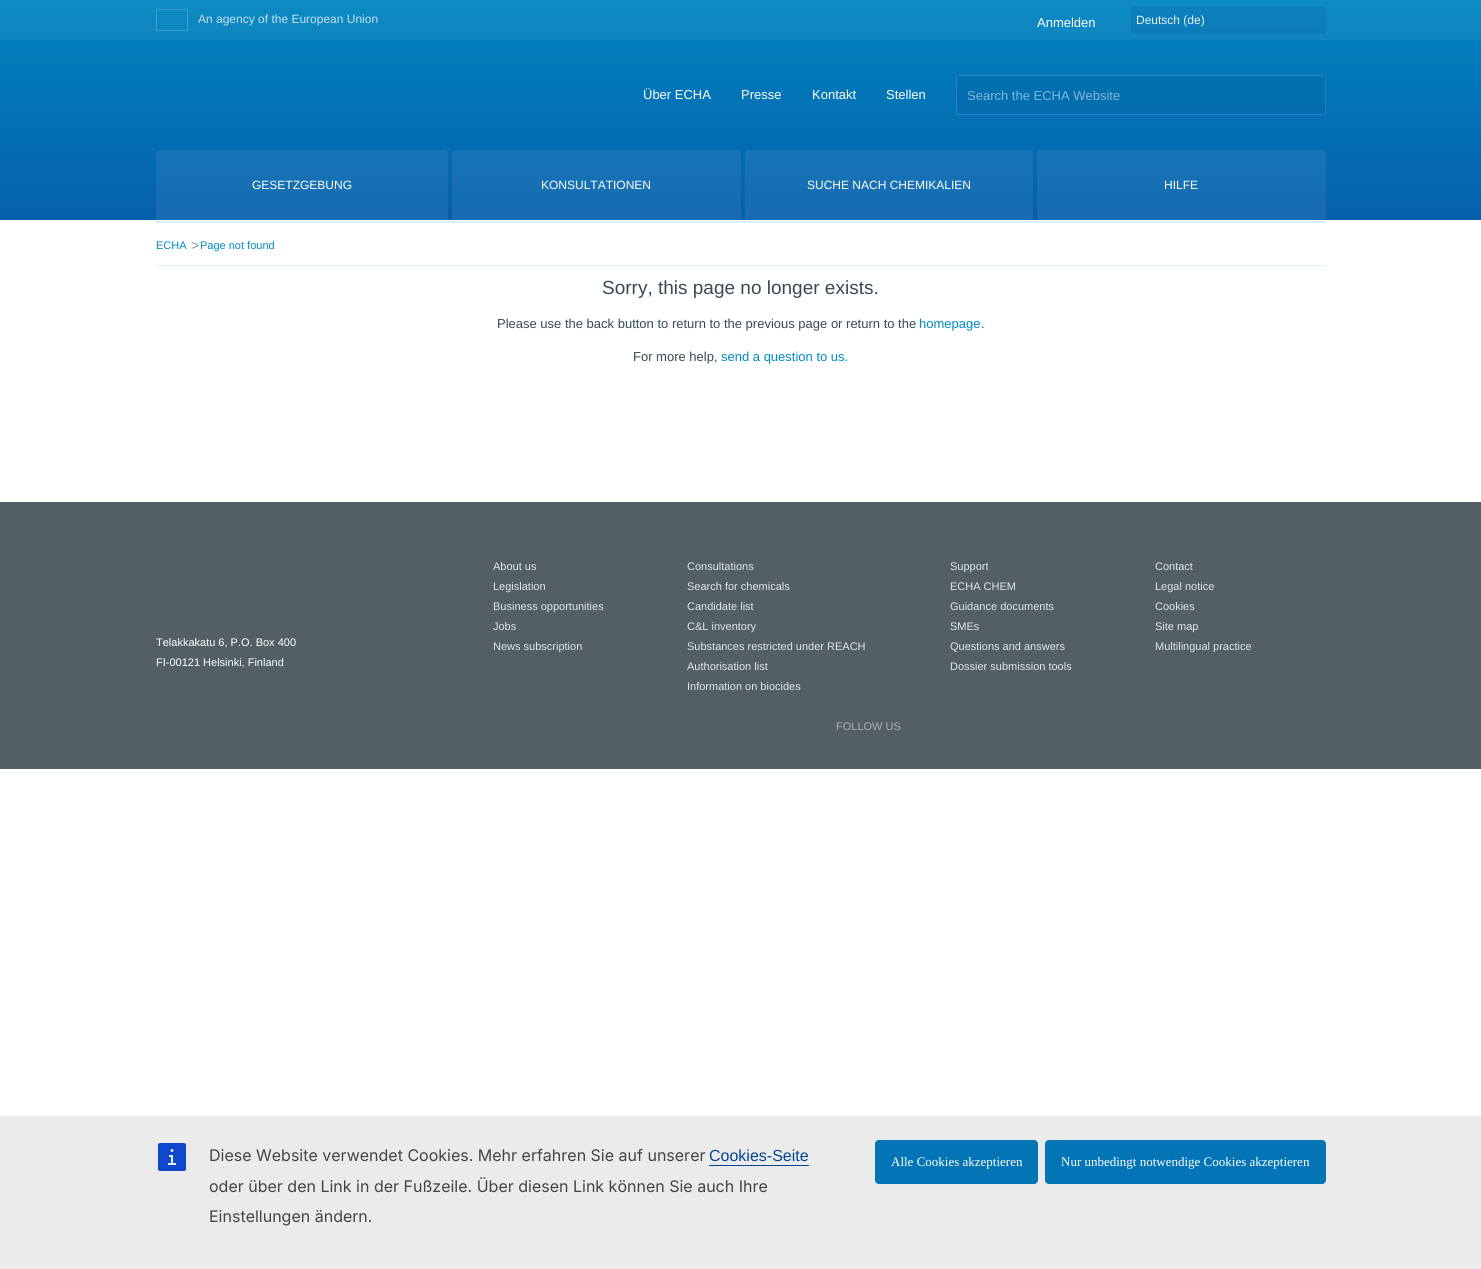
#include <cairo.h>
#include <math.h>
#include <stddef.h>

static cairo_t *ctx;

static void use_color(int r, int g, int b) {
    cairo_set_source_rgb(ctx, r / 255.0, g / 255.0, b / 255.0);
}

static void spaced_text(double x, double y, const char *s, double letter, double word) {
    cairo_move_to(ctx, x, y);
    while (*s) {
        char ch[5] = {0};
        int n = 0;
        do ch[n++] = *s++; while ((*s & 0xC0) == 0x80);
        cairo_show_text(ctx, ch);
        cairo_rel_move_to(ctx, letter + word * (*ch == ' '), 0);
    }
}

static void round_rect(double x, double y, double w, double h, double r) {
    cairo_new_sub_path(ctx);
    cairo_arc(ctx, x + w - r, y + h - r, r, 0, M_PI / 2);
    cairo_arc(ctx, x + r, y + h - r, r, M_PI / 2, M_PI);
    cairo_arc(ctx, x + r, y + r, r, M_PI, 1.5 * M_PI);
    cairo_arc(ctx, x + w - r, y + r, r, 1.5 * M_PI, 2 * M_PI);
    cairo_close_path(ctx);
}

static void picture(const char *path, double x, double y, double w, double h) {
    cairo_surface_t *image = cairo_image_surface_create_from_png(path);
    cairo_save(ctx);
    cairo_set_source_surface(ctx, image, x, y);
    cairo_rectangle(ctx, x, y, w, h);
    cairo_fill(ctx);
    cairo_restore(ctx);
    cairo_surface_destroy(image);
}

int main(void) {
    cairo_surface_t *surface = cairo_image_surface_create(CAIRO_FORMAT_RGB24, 1481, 1269);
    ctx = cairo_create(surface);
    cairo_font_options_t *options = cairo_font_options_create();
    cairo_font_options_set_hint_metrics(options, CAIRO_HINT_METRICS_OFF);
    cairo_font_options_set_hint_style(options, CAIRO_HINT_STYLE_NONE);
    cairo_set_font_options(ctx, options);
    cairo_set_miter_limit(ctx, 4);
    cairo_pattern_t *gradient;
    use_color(255, 255, 255);
    cairo_paint(ctx);
    gradient = cairo_pattern_create_linear(741, 0, 741, 220);
    cairo_pattern_add_color_stop_rgba(gradient, 0, 0, 0.522, 0.749, 1);
    cairo_pattern_add_color_stop_rgba(gradient, 1, 0.024, 0.376, 0.671, 1);
    cairo_set_source(ctx, gradient);
    cairo_pattern_destroy(gradient);
    cairo_rectangle(ctx, 0, 40, 1481, 180);
    cairo_fill(ctx);
    gradient = cairo_pattern_create_linear(741, 0, 741, 220);
    cairo_pattern_add_color_stop_rgba(gradient, 0, 0.051, 0.545, 0.761, 1);
    cairo_pattern_add_color_stop_rgba(gradient, 1, 0.071, 0.408, 0.686, 1);
    cairo_set_source(ctx, gradient);
    cairo_pattern_destroy(gradient);
    cairo_rectangle(ctx, 0, 0, 1481, 40);
    cairo_fill(ctx);
    cairo_rectangle(ctx, 156.5, 9.5, 31, 21);
    cairo_set_source_rgba(ctx, 1, 1, 1, 0.2);
    cairo_set_line_width(ctx, 1);
    cairo_stroke(ctx);
    cairo_select_font_face(ctx, "Liberation Sans", CAIRO_FONT_SLANT_NORMAL, CAIRO_FONT_WEIGHT_NORMAL);
    cairo_set_font_size(ctx, 12);
    use_color(195, 225, 239);
    cairo_move_to(ctx, 198, 23);
    cairo_show_text(ctx, "An agency of the European Union");
    cairo_set_font_size(ctx, 13);
    use_color(255, 255, 255);
    cairo_move_to(ctx, 1037, 27);
    cairo_show_text(ctx, "Anmelden");
    cairo_set_source_rgba(ctx, 0.024, 0.376, 0.671, 0.25);
    round_rect(1131, 6, 195, 28, 2);
    cairo_fill(ctx);
    cairo_set_font_size(ctx, 12);
    use_color(231, 242, 248);
    cairo_move_to(ctx, 1136, 24);
    cairo_show_text(ctx, "Deutsch (de)");
    cairo_set_font_size(ctx, 13);
    use_color(255, 255, 255);
    cairo_move_to(ctx, 643, 99);
    cairo_show_text(ctx, "Über ECHA");
    cairo_move_to(ctx, 741, 99);
    cairo_show_text(ctx, "Presse");
    cairo_move_to(ctx, 812, 99);
    cairo_show_text(ctx, "Kontakt");
    cairo_move_to(ctx, 886, 99);
    cairo_show_text(ctx, "Stellen");
    cairo_set_source_rgba(ctx, 0, 0.212, 0.435, 0.1);
    round_rect(956, 75, 370, 40, 3);
    cairo_fill(ctx);
    round_rect(956.5, 75.5, 369, 39, 2.5);
    cairo_set_source_rgba(ctx, 1, 1, 1, 0.15);
    cairo_stroke(ctx);
    use_color(129, 183, 215);
    cairo_move_to(ctx, 967, 100);
    cairo_show_text(ctx, "Search the ECHA Website");
    use_color(215, 239, 250);
    cairo_rectangle(ctx, 156, 221, 1170, 2);
    cairo_fill(ctx);
    cairo_set_source_rgba(ctx, 1, 1, 1, 0.07);
    cairo_new_path(ctx);
    cairo_move_to(ctx, 160, 150);
    cairo_line_to(ctx, 444, 150);
    cairo_curve_to(ctx, 446, 150, 448, 152, 448, 154);
    cairo_line_to(ctx, 448, 220);
    cairo_line_to(ctx, 156, 220);
    cairo_line_to(ctx, 156, 154);
    cairo_curve_to(ctx, 156, 152, 158, 150, 160, 150);
    cairo_close_path(ctx);
    cairo_fill(ctx);
    cairo_set_font_size(ctx, 12);
    use_color(255, 255, 255);
    cairo_move_to(ctx, 252, 189);
    cairo_show_text(ctx, "GESETZGEBUNG");
    cairo_set_source_rgba(ctx, 1, 1, 1, 0.07);
    cairo_new_path(ctx);
    cairo_move_to(ctx, 456, 150);
    cairo_line_to(ctx, 737, 150);
    cairo_curve_to(ctx, 739, 150, 741, 152, 741, 154);
    cairo_line_to(ctx, 741, 220);
    cairo_line_to(ctx, 452, 220);
    cairo_line_to(ctx, 452, 154);
    cairo_curve_to(ctx, 452, 152, 454, 150, 456, 150);
    cairo_close_path(ctx);
    cairo_fill(ctx);
    use_color(255, 255, 255);
    cairo_move_to(ctx, 541, 189);
    cairo_show_text(ctx, "KONSULTATIONEN");
    cairo_set_source_rgba(ctx, 1, 1, 1, 0.07);
    cairo_new_path(ctx);
    cairo_move_to(ctx, 749, 150);
    cairo_line_to(ctx, 1029, 150);
    cairo_curve_to(ctx, 1031, 150, 1033, 152, 1033, 154);
    cairo_line_to(ctx, 1033, 220);
    cairo_line_to(ctx, 745, 220);
    cairo_line_to(ctx, 745, 154);
    cairo_curve_to(ctx, 745, 152, 747, 150, 749, 150);
    cairo_close_path(ctx);
    cairo_fill(ctx);
    use_color(255, 255, 255);
    cairo_move_to(ctx, 807, 189);
    cairo_show_text(ctx, "SUCHE NACH CHEMIKALIEN");
    cairo_set_source_rgba(ctx, 1, 1, 1, 0.07);
    cairo_new_path(ctx);
    cairo_move_to(ctx, 1041, 150);
    cairo_line_to(ctx, 1322, 150);
    cairo_curve_to(ctx, 1324, 150, 1326, 152, 1326, 154);
    cairo_line_to(ctx, 1326, 220);
    cairo_line_to(ctx, 1037, 220);
    cairo_line_to(ctx, 1037, 154);
    cairo_curve_to(ctx, 1037, 152, 1039, 150, 1041, 150);
    cairo_close_path(ctx);
    cairo_fill(ctx);
    use_color(255, 255, 255);
    cairo_move_to(ctx, 1164, 189);
    cairo_show_text(ctx, "HILFE");
    use_color(229, 241, 244);
    cairo_rectangle(ctx, 156, 265, 1170, 1);
    cairo_fill(ctx);
    cairo_set_font_size(ctx, 11);
    use_color(0, 139, 200);
    cairo_move_to(ctx, 156, 249);
    cairo_show_text(ctx, "ECHA");
    cairo_set_font_size(ctx, 14);
    use_color(138, 148, 153);
    spaced_text(191, 250, ">", -4, 0);
    cairo_set_font_size(ctx, 11);
    use_color(0, 139, 200);
    cairo_move_to(ctx, 200, 249);
    cairo_show_text(ctx, "Page not found");
    cairo_set_font_size(ctx, 19);
    use_color(56, 74, 83);
    cairo_move_to(ctx, 602, 294);
    cairo_show_text(ctx, "Sorry, this page no longer exists.");
    cairo_set_font_size(ctx, 13);
    cairo_move_to(ctx, 497, 328);
    cairo_show_text(ctx, "Please use the back button to return to the previous page or return to the");
    use_color(0, 139, 200);
    cairo_move_to(ctx, 919, 328);
    cairo_show_text(ctx, "homepage");
    use_color(56, 74, 83);
    cairo_move_to(ctx, 981, 328);
    cairo_show_text(ctx, ".");
    cairo_move_to(ctx, 633, 361);
    cairo_show_text(ctx, "For more help,");
    use_color(0, 139, 200);
    cairo_move_to(ctx, 721, 361);
    cairo_show_text(ctx, "send a question to us.");
    use_color(82, 95, 102);
    cairo_rectangle(ctx, 0, 502, 1481, 267);
    cairo_fill(ctx);
    cairo_set_font_size(ctx, 11);
    use_color(255, 255, 255);
    cairo_move_to(ctx, 156, 646);
    cairo_show_text(ctx, "Telakkakatu 6, P.O. Box 400");
    cairo_move_to(ctx, 156, 666);
    cairo_show_text(ctx, "FI-00121 Helsinki, Finland");
    use_color(228, 229, 230);
    cairo_move_to(ctx, 493, 570);
    cairo_show_text(ctx, "About us");
    cairo_move_to(ctx, 493, 590);
    cairo_show_text(ctx, "Legislation");
    cairo_move_to(ctx, 493, 610);
    cairo_show_text(ctx, "Business opportunities");
    cairo_move_to(ctx, 493, 630);
    cairo_show_text(ctx, "Jobs");
    cairo_move_to(ctx, 493, 650);
    cairo_show_text(ctx, "News subscription");
    cairo_move_to(ctx, 687, 570);
    cairo_show_text(ctx, "Consultations");
    cairo_move_to(ctx, 687, 590);
    cairo_show_text(ctx, "Search for chemicals");
    cairo_move_to(ctx, 687, 610);
    cairo_show_text(ctx, "Candidate list");
    cairo_move_to(ctx, 687, 630);
    cairo_show_text(ctx, "C&L inventory");
    cairo_move_to(ctx, 687, 650);
    cairo_show_text(ctx, "Substances restricted under REACH");
    cairo_move_to(ctx, 687, 670);
    cairo_show_text(ctx, "Authorisation list");
    cairo_move_to(ctx, 687, 690);
    cairo_show_text(ctx, "Information on biocides");
    cairo_move_to(ctx, 950, 570);
    cairo_show_text(ctx, "Support");
    cairo_move_to(ctx, 950, 590);
    cairo_show_text(ctx, "ECHA CHEM");
    cairo_move_to(ctx, 950, 610);
    cairo_show_text(ctx, "Guidance documents");
    cairo_move_to(ctx, 950, 630);
    cairo_show_text(ctx, "SMEs");
    cairo_move_to(ctx, 950, 650);
    cairo_show_text(ctx, "Questions and answers");
    cairo_move_to(ctx, 950, 670);
    cairo_show_text(ctx, "Dossier submission tools");
    cairo_move_to(ctx, 1155, 570);
    cairo_show_text(ctx, "Contact");
    cairo_move_to(ctx, 1155, 590);
    cairo_show_text(ctx, "Legal notice");
    cairo_move_to(ctx, 1155, 610);
    cairo_show_text(ctx, "Cookies");
    cairo_move_to(ctx, 1155, 630);
    cairo_show_text(ctx, "Site map");
    cairo_move_to(ctx, 1155, 650);
    cairo_show_text(ctx, "Multilingual practice");
    use_color(169, 175, 179);
    cairo_move_to(ctx, 836, 730);
    cairo_show_text(ctx, "FOLLOW US");
    use_color(235, 235, 235);
    cairo_rectangle(ctx, 0, 1116, 1481, 153);
    cairo_fill(ctx);
    picture("img1.png", 158, 1143, 28, 28);
    cairo_select_font_face(ctx, "Inter", CAIRO_FONT_SLANT_NORMAL, CAIRO_FONT_WEIGHT_NORMAL);
    cairo_set_font_size(ctx, 16);
    use_color(68, 68, 68);
    cairo_move_to(ctx, 209, 1161);
    cairo_show_text(ctx, "Diese Website verwendet Cookies. Mehr erfahren Sie auf unserer");
    cairo_select_font_face(ctx, "Liberation Sans", CAIRO_FONT_SLANT_NORMAL, CAIRO_FONT_WEIGHT_NORMAL);
    use_color(0, 68, 148);
    cairo_move_to(ctx, 709, 1161);
    cairo_show_text(ctx, "Cookies-Seite");
    cairo_rectangle(ctx, 709, 1165, 100, 1);
    cairo_fill(ctx);
    cairo_select_font_face(ctx, "Inter", CAIRO_FONT_SLANT_NORMAL, CAIRO_FONT_WEIGHT_NORMAL);
    use_color(68, 68, 68);
    cairo_move_to(ctx, 209, 1192);
    cairo_show_text(ctx, "oder über den Link in der Fußzeile. Über diesen Link können Sie auch Ihre");
    cairo_move_to(ctx, 209, 1222);
    cairo_show_text(ctx, "Einstellungen ändern.");
    use_color(3, 116, 182);
    round_rect(875, 1140, 163, 44, 4);
    cairo_fill(ctx);
    cairo_select_font_face(ctx, "Liberation Serif", CAIRO_FONT_SLANT_NORMAL, CAIRO_FONT_WEIGHT_NORMAL);
    cairo_set_font_size(ctx, 13);
    use_color(255, 255, 255);
    cairo_move_to(ctx, 891, 1166);
    cairo_show_text(ctx, "Alle Cookies akzeptieren");
    use_color(3, 116, 182);
    round_rect(1045, 1140, 281, 44, 4);
    cairo_fill(ctx);
    use_color(255, 255, 255);
    cairo_move_to(ctx, 1061, 1166);
    cairo_show_text(ctx, "Nur unbedingt notwendige Cookies akzeptieren");
    cairo_surface_write_to_png(surface, "result.png");
    cairo_font_options_destroy(options);
    cairo_destroy(ctx);
    cairo_surface_destroy(surface);
    return 0;
}
